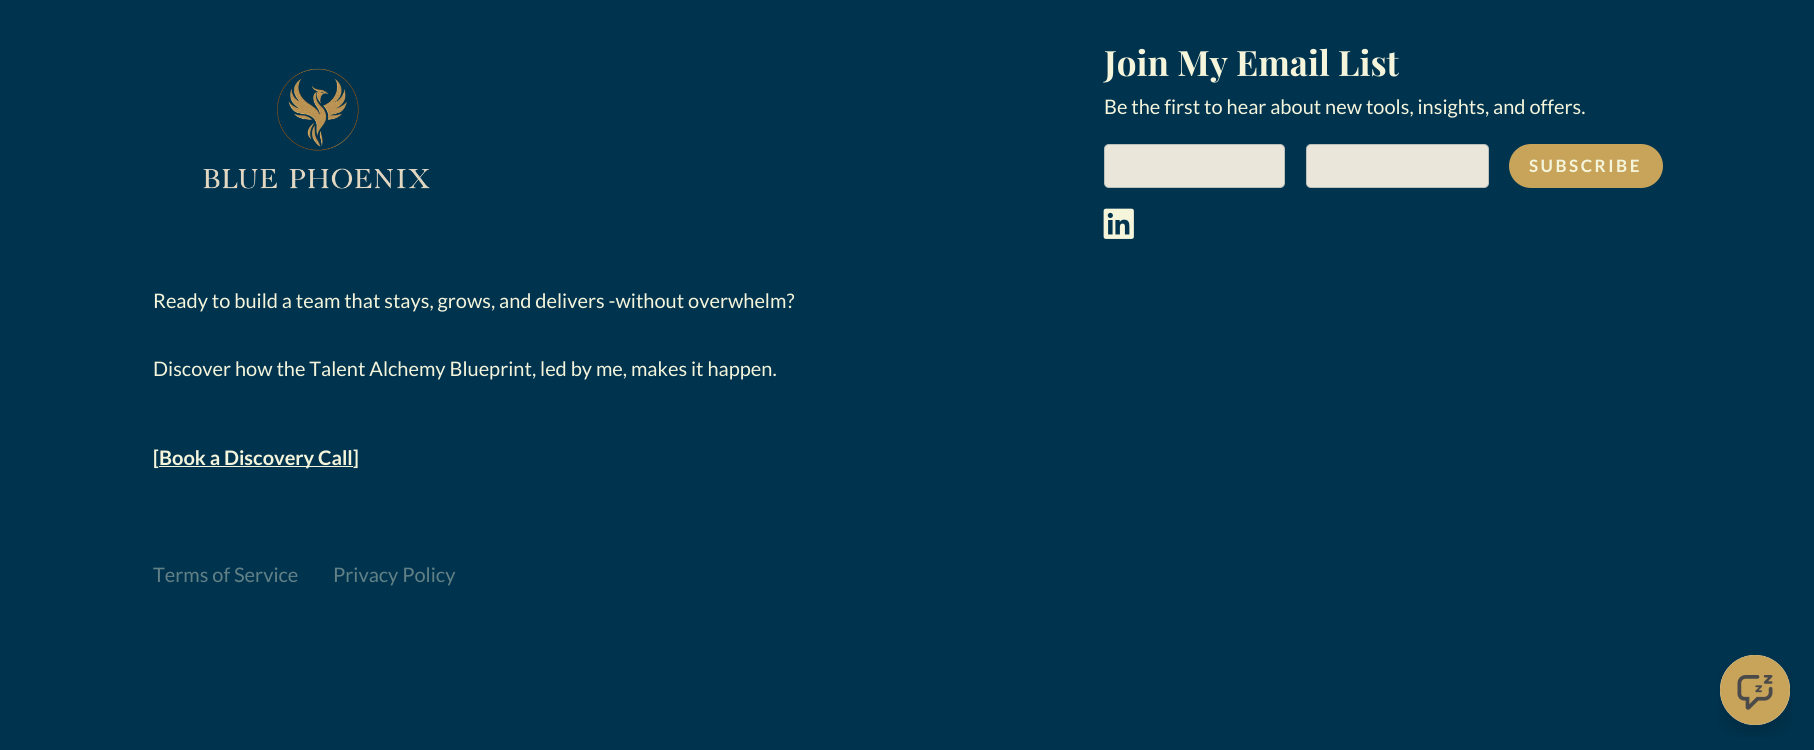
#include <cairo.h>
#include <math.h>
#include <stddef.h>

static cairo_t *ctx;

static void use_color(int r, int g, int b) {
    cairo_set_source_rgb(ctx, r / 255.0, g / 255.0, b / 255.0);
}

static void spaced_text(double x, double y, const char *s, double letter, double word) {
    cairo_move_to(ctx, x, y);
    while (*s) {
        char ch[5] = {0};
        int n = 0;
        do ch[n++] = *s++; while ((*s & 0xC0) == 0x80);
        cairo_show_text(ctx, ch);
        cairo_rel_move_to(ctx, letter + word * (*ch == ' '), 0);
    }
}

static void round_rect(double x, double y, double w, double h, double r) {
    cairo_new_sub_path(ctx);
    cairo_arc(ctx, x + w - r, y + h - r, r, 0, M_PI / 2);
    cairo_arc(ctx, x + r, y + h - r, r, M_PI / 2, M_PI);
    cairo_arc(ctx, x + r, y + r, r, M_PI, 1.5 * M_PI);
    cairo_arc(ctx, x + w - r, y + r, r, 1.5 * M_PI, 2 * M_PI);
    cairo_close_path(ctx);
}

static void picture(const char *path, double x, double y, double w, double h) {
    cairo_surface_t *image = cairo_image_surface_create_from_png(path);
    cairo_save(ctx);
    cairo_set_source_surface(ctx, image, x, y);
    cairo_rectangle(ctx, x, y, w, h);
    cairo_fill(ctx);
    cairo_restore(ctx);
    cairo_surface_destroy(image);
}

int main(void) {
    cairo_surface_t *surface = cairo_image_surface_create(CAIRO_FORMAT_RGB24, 1814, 750);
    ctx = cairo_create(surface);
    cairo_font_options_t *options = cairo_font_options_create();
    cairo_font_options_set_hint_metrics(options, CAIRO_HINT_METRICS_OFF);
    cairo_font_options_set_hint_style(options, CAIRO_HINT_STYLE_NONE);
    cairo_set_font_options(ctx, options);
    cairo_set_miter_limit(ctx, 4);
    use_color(0, 51, 78);
    cairo_paint(ctx);
    cairo_select_font_face(ctx, "Playfair Display", CAIRO_FONT_SLANT_NORMAL, CAIRO_FONT_WEIGHT_BOLD);
    cairo_set_font_size(ctx, 35);
    use_color(245, 245, 220);
    cairo_move_to(ctx, 1104, 76);
    cairo_show_text(ctx, "Join My Email List");
    cairo_select_font_face(ctx, "Lato", CAIRO_FONT_SLANT_NORMAL, CAIRO_FONT_WEIGHT_NORMAL);
    cairo_set_font_size(ctx, 20);
    cairo_move_to(ctx, 1104, 114);
    cairo_show_text(ctx, "Be the first to hear about new tools, insights, and offers.");
    use_color(234, 230, 217);
    round_rect(1104, 144, 181, 44, 5);
    cairo_fill(ctx);
    round_rect(1104.5, 144.5, 180, 43, 4.5);
    cairo_set_source_rgba(ctx, 0, 0.2, 0.306, 0.2);
    cairo_set_line_width(ctx, 1);
    cairo_stroke(ctx);
    use_color(234, 230, 217);
    round_rect(1306, 144, 183, 44, 5);
    cairo_fill(ctx);
    round_rect(1306.5, 144.5, 182, 43, 4.5);
    cairo_set_source_rgba(ctx, 0, 0.2, 0.306, 0.2);
    cairo_stroke(ctx);
    use_color(200, 164, 90);
    round_rect(1509, 144, 154, 44, 22);
    cairo_fill(ctx);
    cairo_select_font_face(ctx, "Lato", CAIRO_FONT_SLANT_NORMAL, CAIRO_FONT_WEIGHT_BOLD);
    cairo_set_font_size(ctx, 17);
    use_color(245, 245, 220);
    spaced_text(1529, 172, "SUBSCRIBE", 2.5, 0);
    picture("img1.png", 1103, 208, 31, 31);
    picture("img2.png", 203, 68, 227, 121);
    cairo_select_font_face(ctx, "Lato", CAIRO_FONT_SLANT_NORMAL, CAIRO_FONT_WEIGHT_NORMAL);
    cairo_set_font_size(ctx, 20);
    cairo_move_to(ctx, 153, 308);
    cairo_show_text(ctx, "Ready to build a team that stays, grows, and delivers -without overwhelm?");
    cairo_move_to(ctx, 153, 376);
    cairo_show_text(ctx, "Discover how the Talent Alchemy Blueprint, led by me, makes it happen.");
    cairo_select_font_face(ctx, "Lato", CAIRO_FONT_SLANT_NORMAL, CAIRO_FONT_WEIGHT_BOLD);
    cairo_move_to(ctx, 153, 465);
    cairo_show_text(ctx, "[");
    cairo_rectangle(ctx, 159, 466, 194, 1);
    cairo_fill(ctx);
    cairo_move_to(ctx, 159, 465);
    cairo_show_text(ctx, "Book a Discovery Call]");
    cairo_select_font_face(ctx, "Lato", CAIRO_FONT_SLANT_NORMAL, CAIRO_FONT_WEIGHT_NORMAL);
    use_color(98, 129, 135);
    cairo_move_to(ctx, 153, 582);
    cairo_show_text(ctx, "Terms of Service");
    cairo_move_to(ctx, 333, 582);
    cairo_show_text(ctx, "Privacy Policy");
    picture("img3.png", 1718, 655, 74, 82);
    use_color(200, 164, 90);
    cairo_arc(ctx, 1755, 690, 35, 0, 2 * M_PI);
    cairo_fill(ctx);
    picture("img4.png", 1737, 675, 36, 35);
    cairo_surface_write_to_png(surface, "result.png");
    cairo_font_options_destroy(options);
    cairo_destroy(ctx);
    cairo_surface_destroy(surface);
    return 0;
}
